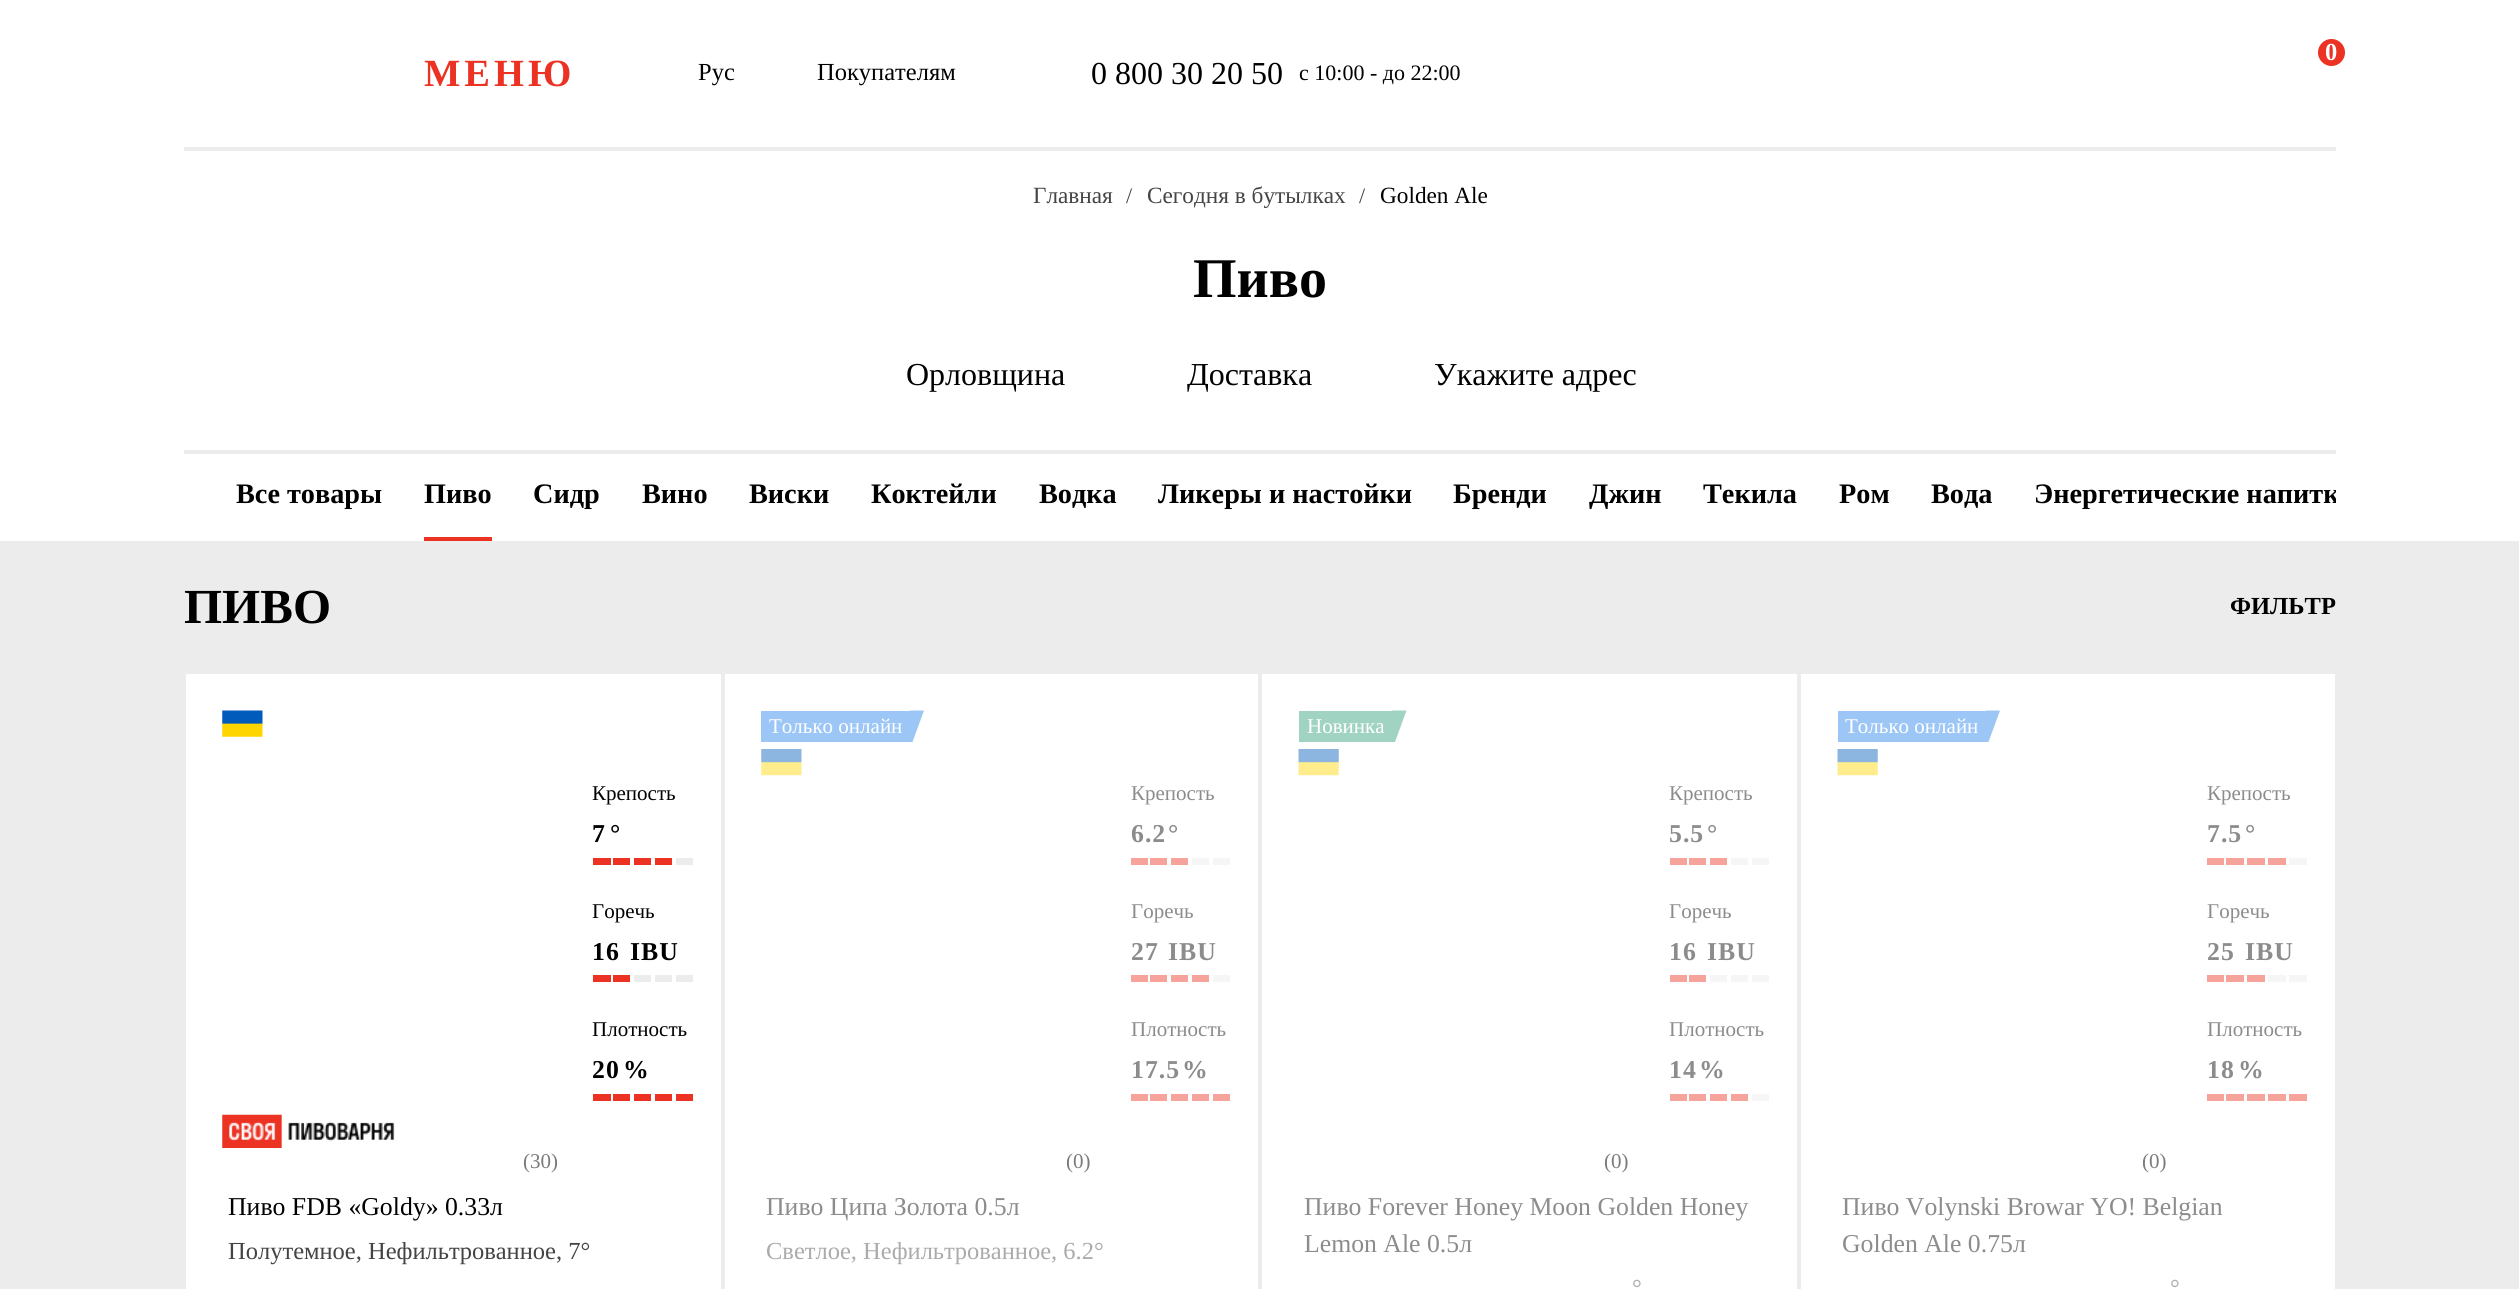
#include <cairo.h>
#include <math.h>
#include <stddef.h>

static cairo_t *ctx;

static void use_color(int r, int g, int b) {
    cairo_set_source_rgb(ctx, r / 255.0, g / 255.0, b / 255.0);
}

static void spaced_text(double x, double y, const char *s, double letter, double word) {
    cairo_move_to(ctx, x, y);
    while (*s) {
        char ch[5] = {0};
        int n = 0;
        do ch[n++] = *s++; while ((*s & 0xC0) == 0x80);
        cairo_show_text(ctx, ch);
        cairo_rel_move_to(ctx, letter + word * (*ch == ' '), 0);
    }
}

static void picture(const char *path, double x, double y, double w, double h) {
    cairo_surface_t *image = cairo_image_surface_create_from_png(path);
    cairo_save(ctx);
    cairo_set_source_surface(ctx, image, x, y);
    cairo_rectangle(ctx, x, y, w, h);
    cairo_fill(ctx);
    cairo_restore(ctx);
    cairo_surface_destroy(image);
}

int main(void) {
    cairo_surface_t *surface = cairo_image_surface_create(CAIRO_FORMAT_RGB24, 2519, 1289);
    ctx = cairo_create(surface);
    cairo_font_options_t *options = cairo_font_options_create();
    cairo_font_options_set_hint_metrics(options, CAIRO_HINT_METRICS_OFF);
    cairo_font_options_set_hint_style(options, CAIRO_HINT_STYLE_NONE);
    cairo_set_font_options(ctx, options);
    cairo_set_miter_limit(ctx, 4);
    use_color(237, 236, 236);
    cairo_paint(ctx);
    use_color(255, 255, 255);
    cairo_rectangle(ctx, 0, 0, 2519, 541);
    cairo_fill(ctx);
    use_color(237, 236, 236);
    cairo_rectangle(ctx, 184, 147, 2152, 4);
    cairo_fill(ctx);
    use_color(235, 50, 35);
    cairo_arc(ctx, 2331.5, 52.5, 15.5, 0, 2 * M_PI);
    cairo_fill_preserve(ctx);
    use_color(255, 255, 255);
    cairo_set_line_width(ctx, 4);
    cairo_stroke(ctx);
    cairo_select_font_face(ctx, "Liberation Serif", CAIRO_FONT_SLANT_NORMAL, CAIRO_FONT_WEIGHT_BOLD);
    cairo_set_font_size(ctx, 24.5);
    cairo_move_to(ctx, 2325, 60);
    cairo_show_text(ctx, "0");
    cairo_set_font_size(ctx, 38.5);
    use_color(235, 50, 35);
    spaced_text(424, 86, "МЕНЮ", 4, 0);
    cairo_select_font_face(ctx, "Liberation Serif", CAIRO_FONT_SLANT_NORMAL, CAIRO_FONT_WEIGHT_NORMAL);
    cairo_set_font_size(ctx, 24.5);
    use_color(0, 0, 0);
    cairo_move_to(ctx, 698, 80);
    cairo_show_text(ctx, "Рус");
    cairo_move_to(ctx, 817, 80);
    cairo_show_text(ctx, "Покупателям");
    cairo_set_font_size(ctx, 32);
    cairo_move_to(ctx, 1091, 84);
    cairo_show_text(ctx, "0 800 30 20 50");
    cairo_set_font_size(ctx, 22);
    cairo_move_to(ctx, 1299, 80);
    cairo_show_text(ctx, "с 10:00 - до 22:00");
    cairo_set_font_size(ctx, 23.25);
    use_color(68, 68, 68);
    cairo_move_to(ctx, 1033, 203);
    cairo_show_text(ctx, "Главная");
    cairo_set_font_size(ctx, 22);
    cairo_move_to(ctx, 1126, 203);
    cairo_show_text(ctx, "/");
    cairo_set_font_size(ctx, 23.25);
    cairo_move_to(ctx, 1147, 203);
    cairo_show_text(ctx, "Сегодня в бутылках");
    cairo_set_font_size(ctx, 22);
    cairo_move_to(ctx, 1359, 203);
    cairo_show_text(ctx, "/");
    cairo_set_font_size(ctx, 23.25);
    use_color(0, 0, 0);
    cairo_move_to(ctx, 1380, 203);
    cairo_show_text(ctx, "Golden Ale");
    cairo_select_font_face(ctx, "Liberation Serif", CAIRO_FONT_SLANT_NORMAL, CAIRO_FONT_WEIGHT_BOLD);
    cairo_set_font_size(ctx, 56);
    cairo_move_to(ctx, 1193, 297);
    cairo_show_text(ctx, "Пиво");
    cairo_select_font_face(ctx, "Liberation Serif", CAIRO_FONT_SLANT_NORMAL, CAIRO_FONT_WEIGHT_NORMAL);
    cairo_set_font_size(ctx, 32);
    cairo_move_to(ctx, 906, 385);
    cairo_show_text(ctx, "Орловщина");
    cairo_move_to(ctx, 1187, 385);
    cairo_show_text(ctx, "Доставка");
    cairo_move_to(ctx, 1434, 385);
    cairo_show_text(ctx, "Укажите адрес");
    use_color(237, 236, 236);
    cairo_rectangle(ctx, 184, 450, 2152, 4);
    cairo_fill(ctx);
    cairo_select_font_face(ctx, "Liberation Serif", CAIRO_FONT_SLANT_NORMAL, CAIRO_FONT_WEIGHT_BOLD);
    cairo_set_font_size(ctx, 28.25);
    use_color(0, 0, 0);
    cairo_move_to(ctx, 236, 503);
    cairo_show_text(ctx, "Все товары");
    use_color(235, 50, 35);
    cairo_rectangle(ctx, 424, 537, 68, 4);
    cairo_fill(ctx);
    use_color(0, 0, 0);
    cairo_move_to(ctx, 424, 503);
    cairo_show_text(ctx, "Пиво");
    cairo_move_to(ctx, 533, 503);
    cairo_show_text(ctx, "Сидр");
    cairo_move_to(ctx, 642, 503);
    cairo_show_text(ctx, "Вино");
    cairo_move_to(ctx, 749, 503);
    cairo_show_text(ctx, "Виски");
    cairo_move_to(ctx, 871, 503);
    cairo_show_text(ctx, "Коктейли");
    cairo_move_to(ctx, 1039, 503);
    cairo_show_text(ctx, "Водка");
    cairo_move_to(ctx, 1158, 503);
    cairo_show_text(ctx, "Ликеры и настойки");
    cairo_move_to(ctx, 1453, 503);
    cairo_show_text(ctx, "Бренди");
    cairo_move_to(ctx, 1589, 503);
    cairo_show_text(ctx, "Джин");
    cairo_move_to(ctx, 1703, 503);
    cairo_show_text(ctx, "Текила");
    cairo_move_to(ctx, 1839, 503);
    cairo_show_text(ctx, "Ром");
    cairo_move_to(ctx, 1931, 503);
    cairo_show_text(ctx, "Вода");
    cairo_save(ctx);
    cairo_rectangle(ctx, 184, 453, 2152, 88);
    cairo_clip(ctx);
    cairo_move_to(ctx, 2034, 503);
    cairo_show_text(ctx, "Энергетические напитк");
    cairo_restore(ctx);
    cairo_set_font_size(ctx, 49);
    cairo_move_to(ctx, 184, 623);
    cairo_show_text(ctx, "ПИВО");
    cairo_set_font_size(ctx, 24.5);
    cairo_move_to(ctx, 2230, 614);
    cairo_show_text(ctx, "ФИЛЬТР");
    use_color(255, 255, 255);
    cairo_rectangle(ctx, 186, 674, 535, 615);
    cairo_fill(ctx);
    cairo_select_font_face(ctx, "Liberation Serif", CAIRO_FONT_SLANT_NORMAL, CAIRO_FONT_WEIGHT_NORMAL);
    cairo_set_font_size(ctx, 21);
    use_color(0, 0, 0);
    cairo_move_to(ctx, 592, 800);
    cairo_show_text(ctx, "Крепость");
    cairo_select_font_face(ctx, "Liberation Serif", CAIRO_FONT_SLANT_NORMAL, CAIRO_FONT_WEIGHT_BOLD);
    cairo_set_font_size(ctx, 25.75);
    spaced_text(592, 842, "7", 1, 0);
    spaced_text(610, 842, "°", 1, 0);
    use_color(235, 50, 35);
    cairo_rectangle(ctx, 593, 858, 18, 7);
    cairo_fill(ctx);
    cairo_rectangle(ctx, 613, 858, 17, 7);
    cairo_fill(ctx);
    cairo_rectangle(ctx, 634, 858, 17, 7);
    cairo_fill(ctx);
    cairo_rectangle(ctx, 655, 858, 17, 7);
    cairo_fill(ctx);
    use_color(237, 236, 236);
    cairo_rectangle(ctx, 676, 858, 17, 7);
    cairo_fill(ctx);
    cairo_select_font_face(ctx, "Liberation Serif", CAIRO_FONT_SLANT_NORMAL, CAIRO_FONT_WEIGHT_NORMAL);
    cairo_set_font_size(ctx, 21);
    use_color(0, 0, 0);
    cairo_move_to(ctx, 592, 918);
    cairo_show_text(ctx, "Горечь");
    cairo_select_font_face(ctx, "Liberation Serif", CAIRO_FONT_SLANT_NORMAL, CAIRO_FONT_WEIGHT_BOLD);
    cairo_set_font_size(ctx, 25.75);
    spaced_text(592, 960, "16", 1, 0);
    spaced_text(630, 960, "IBU", 1, 0);
    use_color(235, 50, 35);
    cairo_rectangle(ctx, 593, 975, 18, 7);
    cairo_fill(ctx);
    cairo_rectangle(ctx, 613, 975, 17, 7);
    cairo_fill(ctx);
    use_color(237, 236, 236);
    cairo_rectangle(ctx, 634, 975, 17, 7);
    cairo_fill(ctx);
    cairo_rectangle(ctx, 655, 975, 17, 7);
    cairo_fill(ctx);
    cairo_rectangle(ctx, 676, 975, 17, 7);
    cairo_fill(ctx);
    cairo_select_font_face(ctx, "Liberation Serif", CAIRO_FONT_SLANT_NORMAL, CAIRO_FONT_WEIGHT_NORMAL);
    cairo_set_font_size(ctx, 21);
    use_color(0, 0, 0);
    cairo_move_to(ctx, 592, 1036);
    cairo_show_text(ctx, "Плотность");
    cairo_select_font_face(ctx, "Liberation Serif", CAIRO_FONT_SLANT_NORMAL, CAIRO_FONT_WEIGHT_BOLD);
    cairo_set_font_size(ctx, 25.75);
    spaced_text(592, 1078, "20", 1, 0);
    spaced_text(623, 1078, "%", 1, 0);
    use_color(235, 50, 35);
    cairo_rectangle(ctx, 593, 1094, 18, 7);
    cairo_fill(ctx);
    cairo_rectangle(ctx, 613, 1094, 17, 7);
    cairo_fill(ctx);
    cairo_rectangle(ctx, 634, 1094, 17, 7);
    cairo_fill(ctx);
    cairo_rectangle(ctx, 655, 1094, 17, 7);
    cairo_fill(ctx);
    cairo_rectangle(ctx, 676, 1094, 17, 7);
    cairo_fill(ctx);
    picture("img1.png", 222, 1114, 173, 34);
    cairo_select_font_face(ctx, "Liberation Serif", CAIRO_FONT_SLANT_NORMAL, CAIRO_FONT_WEIGHT_NORMAL);
    cairo_set_font_size(ctx, 21);
    use_color(123, 123, 123);
    cairo_move_to(ctx, 523, 1168);
    cairo_show_text(ctx, "(30)");
    picture("img2.png", 222, 710, 41, 27);
    cairo_set_font_size(ctx, 25.75);
    use_color(0, 0, 0);
    cairo_move_to(ctx, 228, 1215);
    cairo_show_text(ctx, "Пиво FDB «Goldy» 0.33л");
    cairo_set_font_size(ctx, 24.5);
    use_color(68, 68, 68);
    cairo_move_to(ctx, 228, 1259);
    cairo_show_text(ctx, "Полутемное, Нефильтрованное, 7°");
    use_color(255, 255, 255);
    cairo_rectangle(ctx, 725, 674, 533, 615);
    cairo_fill(ctx);
    use_color(156, 198, 246);
    cairo_rectangle(ctx, 761, 711, 149, 31);
    cairo_fill(ctx);
    cairo_set_font_size(ctx, 21);
    use_color(255, 255, 255);
    cairo_move_to(ctx, 769, 733);
    cairo_show_text(ctx, "Только онлайн");
    use_color(156, 198, 246);
    cairo_new_path(ctx);
    cairo_move_to(ctx, 910, 710.5);
    cairo_line_to(ctx, 924, 710.5);
    cairo_line_to(ctx, 912.5, 742);
    cairo_line_to(ctx, 898.5, 742);
    cairo_close_path(ctx);
    cairo_fill(ctx);
    picture("img3.png", 761, 749, 41, 27);
    cairo_set_font_size(ctx, 25.75);
    use_color(140, 140, 140);
    cairo_move_to(ctx, 766, 1215);
    cairo_show_text(ctx, "Пиво Ципа Золота 0.5л");
    cairo_set_font_size(ctx, 24.5);
    use_color(171, 171, 171);
    cairo_move_to(ctx, 766, 1259);
    cairo_show_text(ctx, "Светлое, Нефильтрованное, 6.2°");
    cairo_set_font_size(ctx, 21);
    use_color(140, 140, 140);
    cairo_move_to(ctx, 1131, 800);
    cairo_show_text(ctx, "Крепость");
    cairo_select_font_face(ctx, "Liberation Serif", CAIRO_FONT_SLANT_NORMAL, CAIRO_FONT_WEIGHT_BOLD);
    cairo_set_font_size(ctx, 25.75);
    spaced_text(1131, 842, "6.2", 1, 0);
    spaced_text(1168, 842, "°", 1, 0);
    use_color(246, 163, 156);
    cairo_rectangle(ctx, 1131, 858, 17, 7);
    cairo_fill(ctx);
    cairo_rectangle(ctx, 1150, 858, 17, 7);
    cairo_fill(ctx);
    cairo_rectangle(ctx, 1171, 858, 17, 7);
    cairo_fill(ctx);
    use_color(247, 246, 246);
    cairo_rectangle(ctx, 1192, 858, 17, 7);
    cairo_fill(ctx);
    cairo_rectangle(ctx, 1213, 858, 17, 7);
    cairo_fill(ctx);
    cairo_select_font_face(ctx, "Liberation Serif", CAIRO_FONT_SLANT_NORMAL, CAIRO_FONT_WEIGHT_NORMAL);
    cairo_set_font_size(ctx, 21);
    use_color(140, 140, 140);
    cairo_move_to(ctx, 1131, 918);
    cairo_show_text(ctx, "Горечь");
    cairo_select_font_face(ctx, "Liberation Serif", CAIRO_FONT_SLANT_NORMAL, CAIRO_FONT_WEIGHT_BOLD);
    cairo_set_font_size(ctx, 25.75);
    spaced_text(1131, 960, "27", 1, 0);
    spaced_text(1168, 960, "IBU", 1, 0);
    use_color(246, 163, 156);
    cairo_rectangle(ctx, 1131, 975, 17, 7);
    cairo_fill(ctx);
    cairo_rectangle(ctx, 1150, 975, 17, 7);
    cairo_fill(ctx);
    cairo_rectangle(ctx, 1171, 975, 17, 7);
    cairo_fill(ctx);
    cairo_rectangle(ctx, 1192, 975, 17, 7);
    cairo_fill(ctx);
    use_color(247, 246, 246);
    cairo_rectangle(ctx, 1213, 975, 17, 7);
    cairo_fill(ctx);
    cairo_select_font_face(ctx, "Liberation Serif", CAIRO_FONT_SLANT_NORMAL, CAIRO_FONT_WEIGHT_NORMAL);
    cairo_set_font_size(ctx, 21);
    use_color(140, 140, 140);
    cairo_move_to(ctx, 1131, 1036);
    cairo_show_text(ctx, "Плотность");
    cairo_select_font_face(ctx, "Liberation Serif", CAIRO_FONT_SLANT_NORMAL, CAIRO_FONT_WEIGHT_BOLD);
    cairo_set_font_size(ctx, 25.75);
    spaced_text(1131, 1078, "17.5", 1, 0);
    spaced_text(1182, 1078, "%", 1, 0);
    use_color(246, 163, 156);
    cairo_rectangle(ctx, 1131, 1094, 17, 7);
    cairo_fill(ctx);
    cairo_rectangle(ctx, 1150, 1094, 17, 7);
    cairo_fill(ctx);
    cairo_rectangle(ctx, 1171, 1094, 17, 7);
    cairo_fill(ctx);
    cairo_rectangle(ctx, 1192, 1094, 17, 7);
    cairo_fill(ctx);
    cairo_rectangle(ctx, 1213, 1094, 17, 7);
    cairo_fill(ctx);
    cairo_select_font_face(ctx, "Liberation Serif", CAIRO_FONT_SLANT_NORMAL, CAIRO_FONT_WEIGHT_NORMAL);
    cairo_set_font_size(ctx, 21);
    use_color(123, 123, 123);
    cairo_move_to(ctx, 1066, 1168);
    cairo_show_text(ctx, "(0)");
    use_color(255, 255, 255);
    cairo_rectangle(ctx, 1262, 674, 535, 615);
    cairo_fill(ctx);
    use_color(160, 211, 193);
    cairo_rectangle(ctx, 1299, 711, 94, 31);
    cairo_fill(ctx);
    use_color(255, 255, 255);
    cairo_move_to(ctx, 1307, 733);
    cairo_show_text(ctx, "Новинка");
    use_color(160, 211, 193);
    cairo_new_path(ctx);
    cairo_move_to(ctx, 1392.5, 710.5);
    cairo_line_to(ctx, 1406.5, 710.5);
    cairo_line_to(ctx, 1395, 742);
    cairo_line_to(ctx, 1381, 742);
    cairo_close_path(ctx);
    cairo_fill(ctx);
    picture("img4.png", 1298, 749, 41, 27);
    cairo_set_font_size(ctx, 25.75);
    use_color(140, 140, 140);
    cairo_move_to(ctx, 1304, 1215);
    cairo_show_text(ctx, "Пиво Forever Honey Moon Golden Honey");
    cairo_move_to(ctx, 1304, 1252);
    cairo_show_text(ctx, "Lemon Ale 0.5л");
    cairo_set_font_size(ctx, 24.5);
    use_color(171, 171, 171);
    cairo_move_to(ctx, 1632, 1296);
    cairo_show_text(ctx, "°");
    cairo_set_font_size(ctx, 21);
    use_color(140, 140, 140);
    cairo_move_to(ctx, 1669, 800);
    cairo_show_text(ctx, "Крепость");
    cairo_select_font_face(ctx, "Liberation Serif", CAIRO_FONT_SLANT_NORMAL, CAIRO_FONT_WEIGHT_BOLD);
    cairo_set_font_size(ctx, 25.75);
    spaced_text(1669, 842, "5.5", 1, 0);
    spaced_text(1707, 842, "°", 1, 0);
    use_color(246, 163, 156);
    cairo_rectangle(ctx, 1670, 858, 17, 7);
    cairo_fill(ctx);
    cairo_rectangle(ctx, 1689, 858, 17, 7);
    cairo_fill(ctx);
    cairo_rectangle(ctx, 1710, 858, 17, 7);
    cairo_fill(ctx);
    use_color(247, 246, 246);
    cairo_rectangle(ctx, 1731, 858, 17, 7);
    cairo_fill(ctx);
    cairo_rectangle(ctx, 1752, 858, 17, 7);
    cairo_fill(ctx);
    cairo_select_font_face(ctx, "Liberation Serif", CAIRO_FONT_SLANT_NORMAL, CAIRO_FONT_WEIGHT_NORMAL);
    cairo_set_font_size(ctx, 21);
    use_color(140, 140, 140);
    cairo_move_to(ctx, 1669, 918);
    cairo_show_text(ctx, "Горечь");
    cairo_select_font_face(ctx, "Liberation Serif", CAIRO_FONT_SLANT_NORMAL, CAIRO_FONT_WEIGHT_BOLD);
    cairo_set_font_size(ctx, 25.75);
    spaced_text(1669, 960, "16", 1, 0);
    spaced_text(1707, 960, "IBU", 1, 0);
    use_color(246, 163, 156);
    cairo_rectangle(ctx, 1670, 975, 17, 7);
    cairo_fill(ctx);
    cairo_rectangle(ctx, 1689, 975, 17, 7);
    cairo_fill(ctx);
    use_color(247, 246, 246);
    cairo_rectangle(ctx, 1710, 975, 17, 7);
    cairo_fill(ctx);
    cairo_rectangle(ctx, 1731, 975, 17, 7);
    cairo_fill(ctx);
    cairo_rectangle(ctx, 1752, 975, 17, 7);
    cairo_fill(ctx);
    cairo_select_font_face(ctx, "Liberation Serif", CAIRO_FONT_SLANT_NORMAL, CAIRO_FONT_WEIGHT_NORMAL);
    cairo_set_font_size(ctx, 21);
    use_color(140, 140, 140);
    cairo_move_to(ctx, 1669, 1036);
    cairo_show_text(ctx, "Плотность");
    cairo_select_font_face(ctx, "Liberation Serif", CAIRO_FONT_SLANT_NORMAL, CAIRO_FONT_WEIGHT_BOLD);
    cairo_set_font_size(ctx, 25.75);
    spaced_text(1669, 1078, "14", 1, 0);
    spaced_text(1699, 1078, "%", 1, 0);
    use_color(246, 163, 156);
    cairo_rectangle(ctx, 1670, 1094, 17, 7);
    cairo_fill(ctx);
    cairo_rectangle(ctx, 1689, 1094, 17, 7);
    cairo_fill(ctx);
    cairo_rectangle(ctx, 1710, 1094, 17, 7);
    cairo_fill(ctx);
    cairo_rectangle(ctx, 1731, 1094, 17, 7);
    cairo_fill(ctx);
    use_color(247, 246, 246);
    cairo_rectangle(ctx, 1752, 1094, 17, 7);
    cairo_fill(ctx);
    cairo_select_font_face(ctx, "Liberation Serif", CAIRO_FONT_SLANT_NORMAL, CAIRO_FONT_WEIGHT_NORMAL);
    cairo_set_font_size(ctx, 21);
    use_color(123, 123, 123);
    cairo_move_to(ctx, 1604, 1168);
    cairo_show_text(ctx, "(0)");
    use_color(255, 255, 255);
    cairo_rectangle(ctx, 1801, 674, 534, 615);
    cairo_fill(ctx);
    use_color(156, 198, 246);
    cairo_rectangle(ctx, 1838, 711, 148, 31);
    cairo_fill(ctx);
    use_color(255, 255, 255);
    cairo_move_to(ctx, 1845, 733);
    cairo_show_text(ctx, "Только онлайн");
    use_color(156, 198, 246);
    cairo_new_path(ctx);
    cairo_move_to(ctx, 1986, 710.5);
    cairo_line_to(ctx, 2000, 710.5);
    cairo_line_to(ctx, 1988.5, 742);
    cairo_line_to(ctx, 1974.5, 742);
    cairo_close_path(ctx);
    cairo_fill(ctx);
    picture("img4.png", 1837, 749, 41, 27);
    cairo_set_font_size(ctx, 25.75);
    use_color(140, 140, 140);
    cairo_move_to(ctx, 1842, 1215);
    cairo_show_text(ctx, "Пиво Volynski Browar YO! Belgian");
    cairo_move_to(ctx, 1842, 1252);
    cairo_show_text(ctx, "Golden Ale 0.75л");
    cairo_set_font_size(ctx, 24.5);
    use_color(171, 171, 171);
    cairo_move_to(ctx, 2170, 1296);
    cairo_show_text(ctx, "°");
    cairo_set_font_size(ctx, 21);
    use_color(140, 140, 140);
    cairo_move_to(ctx, 2207, 800);
    cairo_show_text(ctx, "Крепость");
    cairo_select_font_face(ctx, "Liberation Serif", CAIRO_FONT_SLANT_NORMAL, CAIRO_FONT_WEIGHT_BOLD);
    cairo_set_font_size(ctx, 25.75);
    spaced_text(2207, 842, "7.5", 1, 0);
    spaced_text(2245, 842, "°", 1, 0);
    use_color(246, 163, 156);
    cairo_rectangle(ctx, 2207, 858, 17, 7);
    cairo_fill(ctx);
    cairo_rectangle(ctx, 2226, 858, 18, 7);
    cairo_fill(ctx);
    cairo_rectangle(ctx, 2247, 858, 18, 7);
    cairo_fill(ctx);
    cairo_rectangle(ctx, 2268, 858, 18, 7);
    cairo_fill(ctx);
    use_color(247, 246, 246);
    cairo_rectangle(ctx, 2289, 858, 18, 7);
    cairo_fill(ctx);
    cairo_select_font_face(ctx, "Liberation Serif", CAIRO_FONT_SLANT_NORMAL, CAIRO_FONT_WEIGHT_NORMAL);
    cairo_set_font_size(ctx, 21);
    use_color(140, 140, 140);
    cairo_move_to(ctx, 2207, 918);
    cairo_show_text(ctx, "Горечь");
    cairo_select_font_face(ctx, "Liberation Serif", CAIRO_FONT_SLANT_NORMAL, CAIRO_FONT_WEIGHT_BOLD);
    cairo_set_font_size(ctx, 25.75);
    spaced_text(2207, 960, "25", 1, 0);
    spaced_text(2245, 960, "IBU", 1, 0);
    use_color(246, 163, 156);
    cairo_rectangle(ctx, 2207, 975, 17, 7);
    cairo_fill(ctx);
    cairo_rectangle(ctx, 2226, 975, 18, 7);
    cairo_fill(ctx);
    cairo_rectangle(ctx, 2247, 975, 18, 7);
    cairo_fill(ctx);
    use_color(247, 246, 246);
    cairo_rectangle(ctx, 2268, 975, 18, 7);
    cairo_fill(ctx);
    cairo_rectangle(ctx, 2289, 975, 18, 7);
    cairo_fill(ctx);
    cairo_select_font_face(ctx, "Liberation Serif", CAIRO_FONT_SLANT_NORMAL, CAIRO_FONT_WEIGHT_NORMAL);
    cairo_set_font_size(ctx, 21);
    use_color(140, 140, 140);
    cairo_move_to(ctx, 2207, 1036);
    cairo_show_text(ctx, "Плотность");
    cairo_select_font_face(ctx, "Liberation Serif", CAIRO_FONT_SLANT_NORMAL, CAIRO_FONT_WEIGHT_BOLD);
    cairo_set_font_size(ctx, 25.75);
    spaced_text(2207, 1078, "18", 1, 0);
    spaced_text(2238, 1078, "%", 1, 0);
    use_color(246, 163, 156);
    cairo_rectangle(ctx, 2207, 1094, 17, 7);
    cairo_fill(ctx);
    cairo_rectangle(ctx, 2226, 1094, 18, 7);
    cairo_fill(ctx);
    cairo_rectangle(ctx, 2247, 1094, 18, 7);
    cairo_fill(ctx);
    cairo_rectangle(ctx, 2268, 1094, 18, 7);
    cairo_fill(ctx);
    cairo_rectangle(ctx, 2289, 1094, 18, 7);
    cairo_fill(ctx);
    cairo_select_font_face(ctx, "Liberation Serif", CAIRO_FONT_SLANT_NORMAL, CAIRO_FONT_WEIGHT_NORMAL);
    cairo_set_font_size(ctx, 21);
    use_color(123, 123, 123);
    cairo_move_to(ctx, 2142, 1168);
    cairo_show_text(ctx, "(0)");
    cairo_surface_write_to_png(surface, "result.png");
    cairo_font_options_destroy(options);
    cairo_destroy(ctx);
    cairo_surface_destroy(surface);
    return 0;
}
